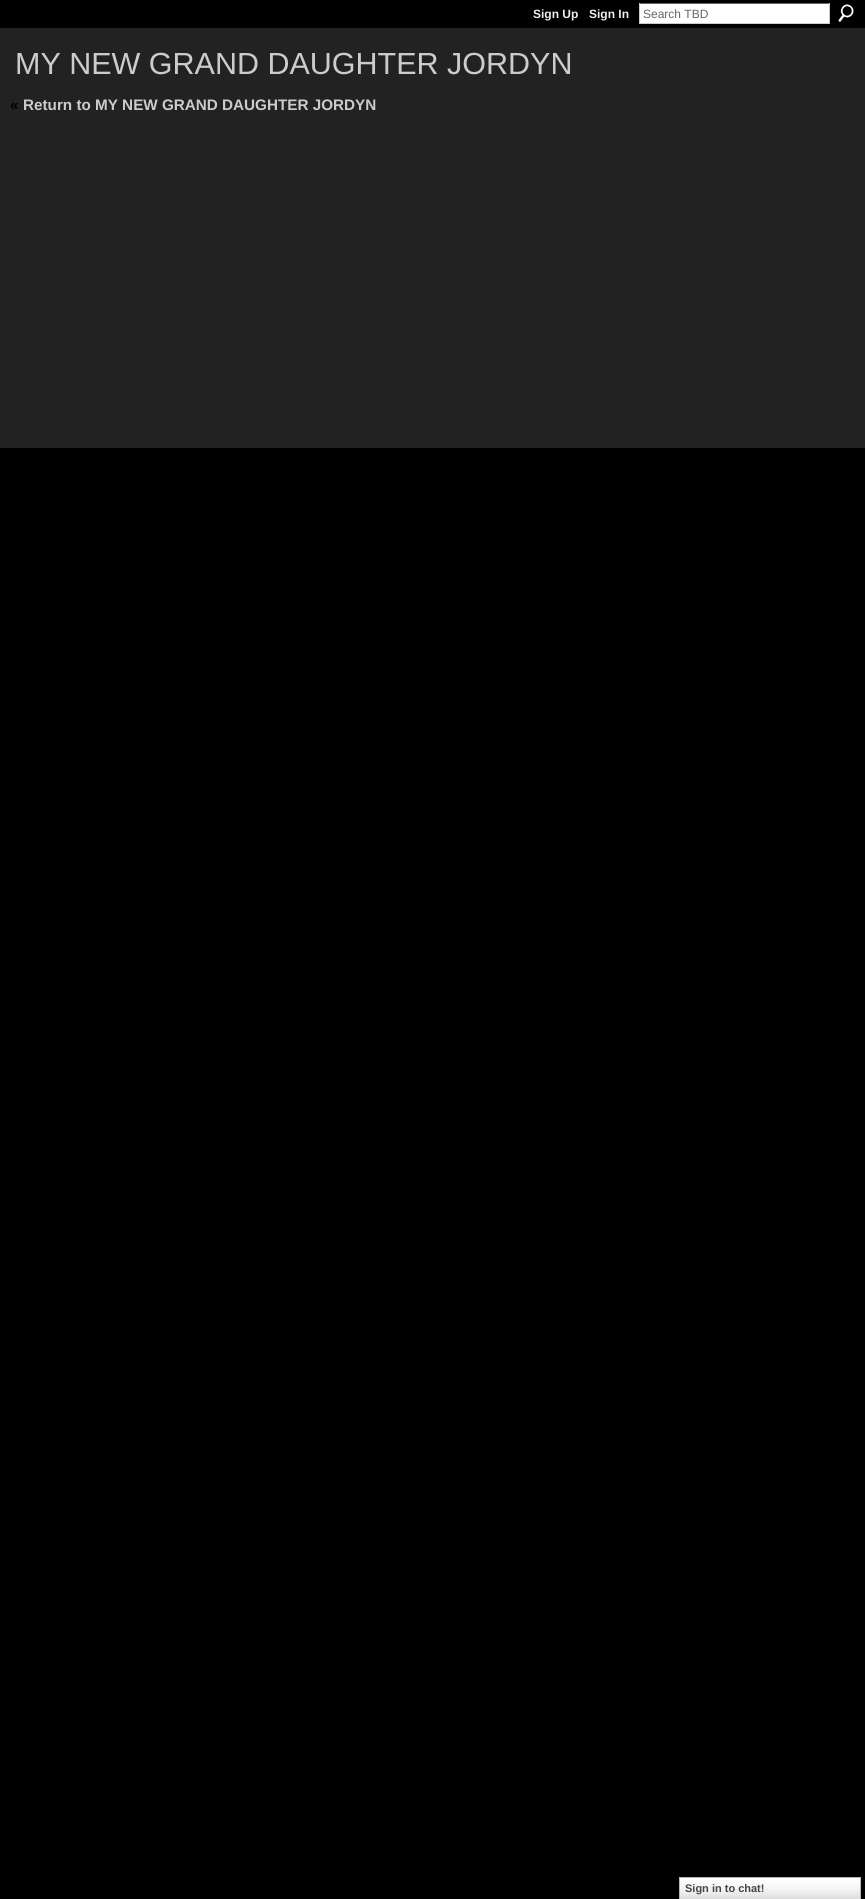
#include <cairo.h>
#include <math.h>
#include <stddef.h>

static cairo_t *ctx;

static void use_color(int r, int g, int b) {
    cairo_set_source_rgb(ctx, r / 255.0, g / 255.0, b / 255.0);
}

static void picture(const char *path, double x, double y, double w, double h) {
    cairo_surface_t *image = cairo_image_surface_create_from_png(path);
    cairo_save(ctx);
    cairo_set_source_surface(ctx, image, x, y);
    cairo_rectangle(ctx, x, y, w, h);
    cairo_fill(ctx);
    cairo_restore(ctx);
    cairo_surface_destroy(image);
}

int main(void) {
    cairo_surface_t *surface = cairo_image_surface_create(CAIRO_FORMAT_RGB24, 865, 1899);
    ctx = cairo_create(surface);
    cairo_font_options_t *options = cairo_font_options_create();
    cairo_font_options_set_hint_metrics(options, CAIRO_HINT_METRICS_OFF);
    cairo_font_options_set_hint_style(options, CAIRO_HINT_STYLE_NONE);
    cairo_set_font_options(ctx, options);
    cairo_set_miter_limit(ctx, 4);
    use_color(0, 0, 0);
    cairo_paint(ctx);
    cairo_select_font_face(ctx, "Liberation Sans", CAIRO_FONT_SLANT_NORMAL, CAIRO_FONT_WEIGHT_BOLD);
    cairo_set_font_size(ctx, 12);
    use_color(238, 238, 238);
    cairo_move_to(ctx, 533, 18);
    cairo_show_text(ctx, "Sign Up");
    cairo_move_to(ctx, 589, 18);
    cairo_show_text(ctx, "Sign In");
    use_color(255, 255, 255);
    cairo_rectangle(ctx, 640, 4, 189, 19);
    cairo_fill(ctx);
    use_color(102, 102, 102);
    cairo_rectangle(ctx, 639, 3, 191, 1);
    cairo_fill(ctx);
    use_color(204, 204, 204);
    cairo_rectangle(ctx, 829, 3, 1, 21);
    cairo_fill(ctx);
    cairo_rectangle(ctx, 639, 23, 191, 1);
    cairo_fill(ctx);
    cairo_rectangle(ctx, 639, 3, 1, 21);
    cairo_fill(ctx);
    cairo_select_font_face(ctx, "Liberation Sans", CAIRO_FONT_SLANT_NORMAL, CAIRO_FONT_WEIGHT_NORMAL);
    use_color(102, 102, 102);
    cairo_move_to(ctx, 643, 18);
    cairo_show_text(ctx, "Search TBD");
    picture("img1.png", 838, 4, 16, 18);
    use_color(34, 34, 34);
    cairo_rectangle(ctx, 0, 28, 865, 420);
    cairo_fill(ctx);
    cairo_set_font_size(ctx, 30.5);
    use_color(204, 204, 204);
    cairo_move_to(ctx, 15, 74);
    cairo_show_text(ctx, "MY NEW GRAND DAUGHTER JORDYN");
    cairo_select_font_face(ctx, "Liberation Sans", CAIRO_FONT_SLANT_NORMAL, CAIRO_FONT_WEIGHT_BOLD);
    cairo_set_font_size(ctx, 15.25);
    use_color(0, 0, 0);
    cairo_move_to(ctx, 10, 110);
    cairo_show_text(ctx, "«");
    use_color(204, 204, 204);
    cairo_move_to(ctx, 23, 110);
    cairo_show_text(ctx, "Return to MY NEW GRAND DAUGHTER JORDYN");
    picture("img2.png", 680, 1878, 180, 21);
    cairo_rectangle(ctx, 679.5, 1877.5, 181, 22);
    use_color(183, 183, 183);
    cairo_set_line_width(ctx, 1);
    cairo_stroke(ctx);
    cairo_set_font_size(ctx, 11);
    use_color(69, 69, 69);
    cairo_move_to(ctx, 685, 1892);
    cairo_show_text(ctx, "Sign in to chat!");
    cairo_surface_write_to_png(surface, "result.png");
    cairo_font_options_destroy(options);
    cairo_destroy(ctx);
    cairo_surface_destroy(surface);
    return 0;
}
